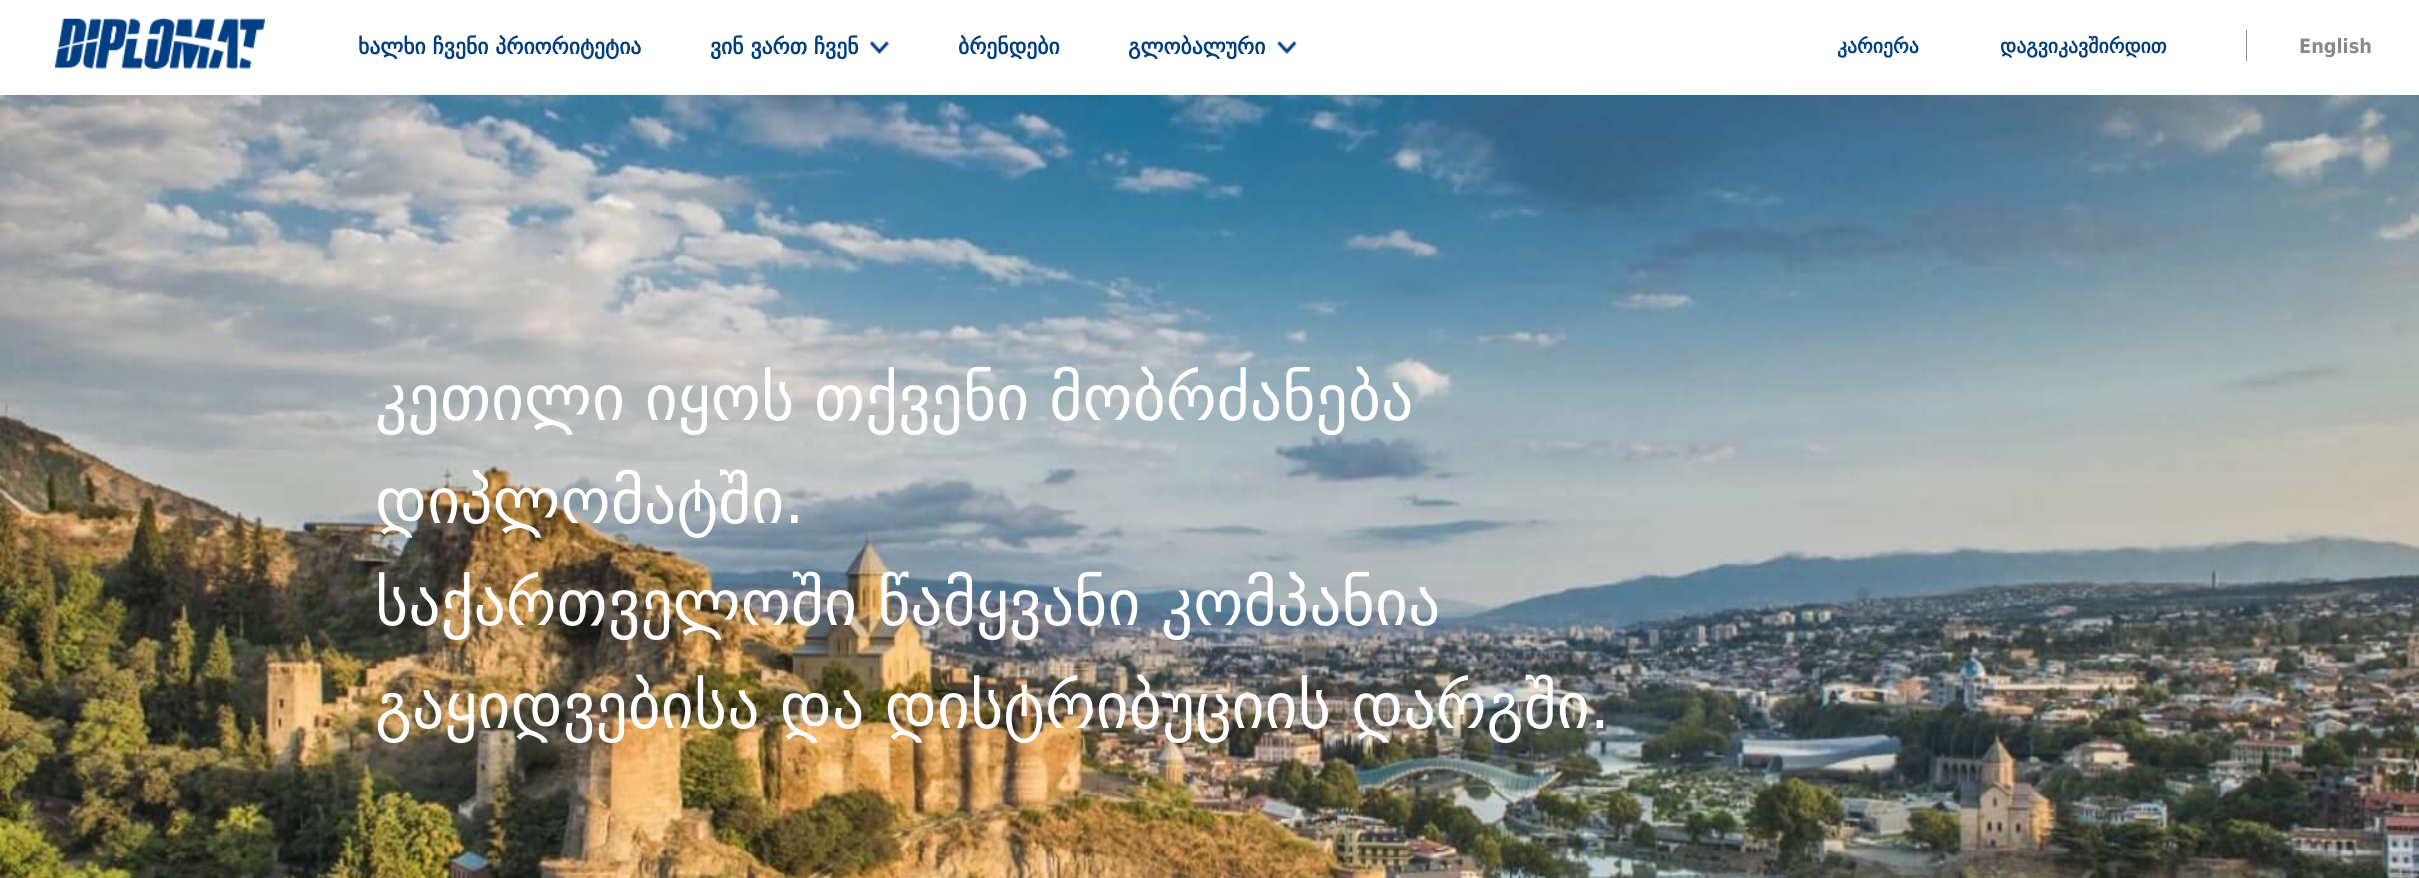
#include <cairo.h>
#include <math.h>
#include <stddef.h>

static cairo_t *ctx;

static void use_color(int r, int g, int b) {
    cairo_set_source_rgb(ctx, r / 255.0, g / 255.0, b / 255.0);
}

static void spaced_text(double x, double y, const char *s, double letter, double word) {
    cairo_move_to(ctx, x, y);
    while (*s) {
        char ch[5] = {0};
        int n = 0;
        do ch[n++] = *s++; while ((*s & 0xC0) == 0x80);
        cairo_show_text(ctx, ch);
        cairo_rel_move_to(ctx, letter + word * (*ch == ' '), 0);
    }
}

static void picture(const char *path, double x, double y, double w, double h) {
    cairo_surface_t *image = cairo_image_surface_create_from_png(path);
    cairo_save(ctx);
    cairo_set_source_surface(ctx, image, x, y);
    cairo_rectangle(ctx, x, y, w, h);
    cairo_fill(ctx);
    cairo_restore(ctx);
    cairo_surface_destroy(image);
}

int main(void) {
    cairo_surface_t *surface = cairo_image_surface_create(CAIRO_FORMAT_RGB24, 2419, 878);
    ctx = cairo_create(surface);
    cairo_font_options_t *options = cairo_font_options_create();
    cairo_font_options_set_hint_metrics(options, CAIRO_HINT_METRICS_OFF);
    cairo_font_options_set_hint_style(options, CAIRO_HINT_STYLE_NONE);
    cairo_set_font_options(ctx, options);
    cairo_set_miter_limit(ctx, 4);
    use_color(255, 255, 255);
    cairo_paint(ctx);
    picture("img1.png", 55, 18, 210, 51);
    cairo_select_font_face(ctx, "DejaVu Sans", CAIRO_FONT_SLANT_NORMAL, CAIRO_FONT_WEIGHT_BOLD);
    cairo_set_font_size(ctx, 21.6);
    use_color(0, 61, 125);
    cairo_move_to(ctx, 358, 54);
    cairo_show_text(ctx, "ხალხი ჩვენი პრიორიტეტია");
    cairo_move_to(ctx, 710, 54);
    cairo_show_text(ctx, "ვინ ვართ ჩვენ");
    picture("img2.png", 870, 41, 19, 13);
    cairo_move_to(ctx, 958, 54);
    cairo_show_text(ctx, "ბრენდები");
    cairo_move_to(ctx, 1128, 54);
    cairo_show_text(ctx, "გლობალური");
    picture("img3.png", 1277, 41, 20, 13);
    cairo_set_font_size(ctx, 19.75);
    cairo_move_to(ctx, 1837, 53);
    cairo_show_text(ctx, "კარიერა");
    cairo_move_to(ctx, 2000, 53);
    cairo_show_text(ctx, "დაგვიკავშირდით");
    cairo_select_font_face(ctx, "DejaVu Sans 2", CAIRO_FONT_SLANT_NORMAL, CAIRO_FONT_WEIGHT_BOLD);
    use_color(137, 137, 137);
    cairo_move_to(ctx, 2299, 53);
    cairo_show_text(ctx, "English");
    cairo_rectangle(ctx, 2246, 30, 1, 31);
    cairo_fill(ctx);
    picture("img4.png", 0, 95, 2419, 783);
    cairo_select_font_face(ctx, "DejaVu Sans", CAIRO_FONT_SLANT_NORMAL, CAIRO_FONT_WEIGHT_NORMAL);
    cairo_set_font_size(ctx, 63.8);
    use_color(255, 255, 255);
    spaced_text(375, 420, "კეთილი იყოს თქვენი მობრძანება", 0, -0.5);
    cairo_move_to(ctx, 375, 523);
    cairo_show_text(ctx, "დიპლომატში.");
    cairo_move_to(ctx, 375, 625);
    cairo_show_text(ctx, "საქართველოში წამყვანი კომპანია");
    cairo_move_to(ctx, 375, 728);
    cairo_show_text(ctx, "გაყიდვებისა და დისტრიბუციის დარგში.");
    cairo_surface_write_to_png(surface, "result.png");
    cairo_font_options_destroy(options);
    cairo_destroy(ctx);
    cairo_surface_destroy(surface);
    return 0;
}
